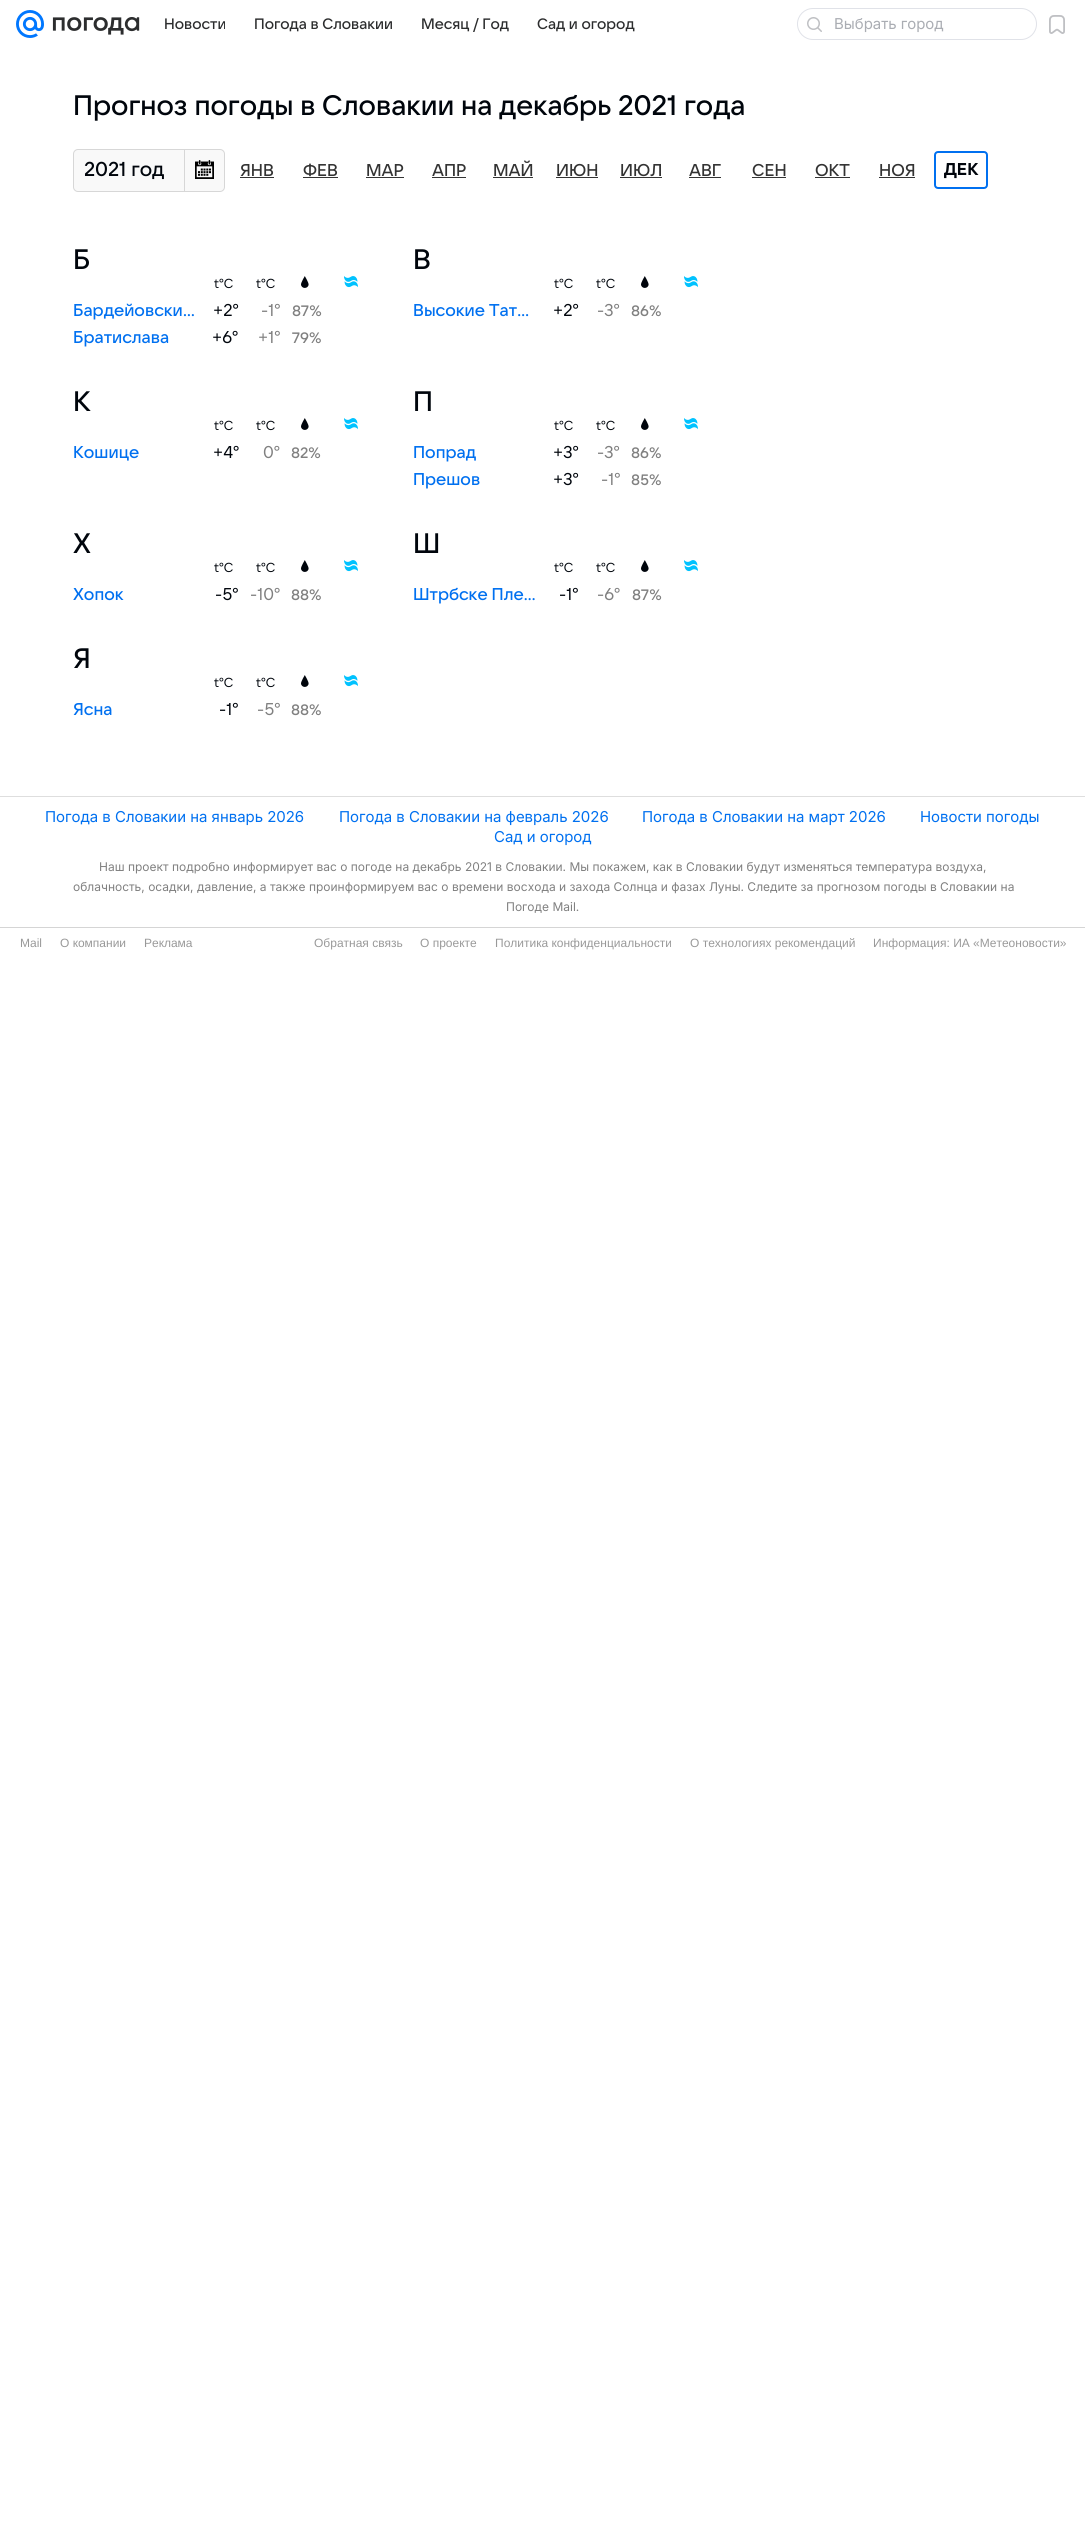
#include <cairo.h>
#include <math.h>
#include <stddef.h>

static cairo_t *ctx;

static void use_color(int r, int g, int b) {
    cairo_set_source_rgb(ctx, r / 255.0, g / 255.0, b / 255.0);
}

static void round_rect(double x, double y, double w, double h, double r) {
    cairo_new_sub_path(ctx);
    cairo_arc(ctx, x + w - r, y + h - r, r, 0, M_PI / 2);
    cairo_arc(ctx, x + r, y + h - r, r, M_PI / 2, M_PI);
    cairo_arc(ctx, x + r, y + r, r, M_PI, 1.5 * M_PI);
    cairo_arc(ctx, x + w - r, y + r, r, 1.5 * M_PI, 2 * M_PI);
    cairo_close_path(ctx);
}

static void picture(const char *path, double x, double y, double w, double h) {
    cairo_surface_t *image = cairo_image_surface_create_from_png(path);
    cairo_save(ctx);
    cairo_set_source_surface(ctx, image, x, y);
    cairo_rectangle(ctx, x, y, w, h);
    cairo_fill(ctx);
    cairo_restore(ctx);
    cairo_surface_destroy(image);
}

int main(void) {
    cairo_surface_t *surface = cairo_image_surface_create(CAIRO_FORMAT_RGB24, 1085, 2537);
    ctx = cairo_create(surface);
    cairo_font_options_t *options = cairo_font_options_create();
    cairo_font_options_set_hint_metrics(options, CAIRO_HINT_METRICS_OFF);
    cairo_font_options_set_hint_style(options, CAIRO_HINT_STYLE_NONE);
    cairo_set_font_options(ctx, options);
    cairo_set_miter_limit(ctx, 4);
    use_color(255, 255, 255);
    cairo_paint(ctx);
    picture("img1.png", 16, 10, 28, 28);
    picture("img2.png", 52, 17, 88, 18);
    cairo_select_font_face(ctx, "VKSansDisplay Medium", CAIRO_FONT_SLANT_NORMAL, CAIRO_FONT_WEIGHT_NORMAL);
    cairo_set_font_size(ctx, 15);
    use_color(44, 45, 46);
    cairo_move_to(ctx, 164, 29);
    cairo_show_text(ctx, "Новости");
    cairo_move_to(ctx, 254, 29);
    cairo_show_text(ctx, "Погода в Словакии");
    cairo_move_to(ctx, 421, 29);
    cairo_show_text(ctx, "Месяц / Год");
    cairo_move_to(ctx, 537, 29);
    cairo_show_text(ctx, "Сад и огород");
    round_rect(797.5, 8.5, 239, 31, 15.5);
    use_color(224, 226, 232);
    cairo_set_line_width(ctx, 1);
    cairo_stroke(ctx);
    picture("img3.png", 807, 17, 15, 15);
    cairo_select_font_face(ctx, "Inter", CAIRO_FONT_SLANT_NORMAL, CAIRO_FONT_WEIGHT_NORMAL);
    use_color(170, 173, 179);
    cairo_move_to(ctx, 834, 29);
    cairo_show_text(ctx, "Выбрать город");
    picture("img4.png", 1049, 15, 16, 19);
    cairo_select_font_face(ctx, "VKSansDisplay Medium", CAIRO_FONT_SLANT_NORMAL, CAIRO_FONT_WEIGHT_NORMAL);
    cairo_set_font_size(ctx, 28);
    use_color(0, 5, 12);
    cairo_move_to(ctx, 73, 115);
    cairo_show_text(ctx, "Прогноз погоды в Словакии на декабрь 2021 года");
    use_color(249, 249, 249);
    round_rect(73.5, 149.5, 151, 42, 4.5);
    cairo_fill_preserve(ctx);
    use_color(215, 215, 215);
    cairo_stroke(ctx);
    cairo_set_font_size(ctx, 20);
    use_color(0, 5, 12);
    cairo_move_to(ctx, 84, 176);
    cairo_show_text(ctx, "2021 год");
    use_color(215, 215, 215);
    cairo_rectangle(ctx, 184, 150, 1, 41);
    cairo_fill(ctx);
    picture("img5.png", 195, 160, 19, 19);
    cairo_set_font_size(ctx, 17);
    use_color(51, 51, 51);
    cairo_move_to(ctx, 240, 176);
    cairo_show_text(ctx, "ЯНВ");
    cairo_rectangle(ctx, 240, 177, 34, 1);
    cairo_fill(ctx);
    cairo_move_to(ctx, 303, 176);
    cairo_show_text(ctx, "ФЕВ");
    cairo_rectangle(ctx, 303, 177, 35, 1);
    cairo_fill(ctx);
    cairo_move_to(ctx, 366, 176);
    cairo_show_text(ctx, "МАР");
    cairo_rectangle(ctx, 366, 177, 38, 1);
    cairo_fill(ctx);
    cairo_move_to(ctx, 432, 176);
    cairo_show_text(ctx, "АПР");
    cairo_rectangle(ctx, 432, 177, 34, 1);
    cairo_fill(ctx);
    cairo_move_to(ctx, 493, 176);
    cairo_show_text(ctx, "МАЙ");
    cairo_rectangle(ctx, 493, 177, 40, 1);
    cairo_fill(ctx);
    cairo_move_to(ctx, 556, 176);
    cairo_show_text(ctx, "ИЮН");
    cairo_rectangle(ctx, 556, 177, 42, 1);
    cairo_fill(ctx);
    cairo_move_to(ctx, 620, 176);
    cairo_show_text(ctx, "ИЮЛ");
    cairo_rectangle(ctx, 620, 177, 42, 1);
    cairo_fill(ctx);
    cairo_move_to(ctx, 689, 176);
    cairo_show_text(ctx, "АВГ");
    cairo_rectangle(ctx, 689, 177, 32, 1);
    cairo_fill(ctx);
    cairo_move_to(ctx, 752, 176);
    cairo_show_text(ctx, "СЕН");
    cairo_rectangle(ctx, 752, 177, 34, 1);
    cairo_fill(ctx);
    cairo_move_to(ctx, 815, 176);
    cairo_show_text(ctx, "ОКТ");
    cairo_rectangle(ctx, 815, 177, 35, 1);
    cairo_fill(ctx);
    cairo_move_to(ctx, 879, 176);
    cairo_show_text(ctx, "НОЯ");
    cairo_rectangle(ctx, 879, 177, 36, 1);
    cairo_fill(ctx);
    round_rect(935, 152, 52, 36, 3);
    use_color(0, 112, 240);
    cairo_set_line_width(ctx, 2);
    cairo_stroke(ctx);
    cairo_select_font_face(ctx, "VKSansDisplay", CAIRO_FONT_SLANT_NORMAL, CAIRO_FONT_WEIGHT_BOLD);
    use_color(0, 5, 12);
    cairo_move_to(ctx, 944, 175);
    cairo_show_text(ctx, "ДЕК");
    cairo_select_font_face(ctx, "VKSansDisplay Medium", CAIRO_FONT_SLANT_NORMAL, CAIRO_FONT_WEIGHT_NORMAL);
    cairo_set_font_size(ctx, 28);
    cairo_move_to(ctx, 73, 269);
    cairo_show_text(ctx, "Б");
    cairo_select_font_face(ctx, "VKSansDisplay", CAIRO_FONT_SLANT_NORMAL, CAIRO_FONT_WEIGHT_NORMAL);
    cairo_set_font_size(ctx, 13);
    cairo_move_to(ctx, 214, 288);
    cairo_show_text(ctx, "t°C");
    cairo_move_to(ctx, 256, 288);
    cairo_show_text(ctx, "t°C");
    picture("img6.png", 301, 276, 8, 12);
    picture("img7.png", 344, 276, 14, 12);
    cairo_select_font_face(ctx, "VKSansDisplay Medium", CAIRO_FONT_SLANT_NORMAL, CAIRO_FONT_WEIGHT_NORMAL);
    cairo_set_font_size(ctx, 17);
    use_color(0, 112, 240);
    cairo_move_to(ctx, 73, 316);
    cairo_show_text(ctx, "Бардейовски…");
    cairo_select_font_face(ctx, "VKSansDisplay", CAIRO_FONT_SLANT_NORMAL, CAIRO_FONT_WEIGHT_NORMAL);
    use_color(0, 5, 12);
    cairo_move_to(ctx, 213, 316);
    cairo_show_text(ctx, "+2°");
    use_color(128, 128, 128);
    cairo_move_to(ctx, 261, 316);
    cairo_show_text(ctx, "-1°");
    cairo_select_font_face(ctx, "VKSansDisplay Medium", CAIRO_FONT_SLANT_NORMAL, CAIRO_FONT_WEIGHT_NORMAL);
    cairo_set_font_size(ctx, 15);
    cairo_move_to(ctx, 292, 316);
    cairo_show_text(ctx, "87%");
    cairo_set_font_size(ctx, 17);
    use_color(0, 112, 240);
    cairo_move_to(ctx, 73, 343);
    cairo_show_text(ctx, "Братислава");
    cairo_select_font_face(ctx, "VKSansDisplay", CAIRO_FONT_SLANT_NORMAL, CAIRO_FONT_WEIGHT_NORMAL);
    use_color(0, 5, 12);
    cairo_move_to(ctx, 212, 343);
    cairo_show_text(ctx, "+6°");
    use_color(128, 128, 128);
    cairo_move_to(ctx, 258, 343);
    cairo_show_text(ctx, "+1°");
    cairo_select_font_face(ctx, "VKSansDisplay Medium", CAIRO_FONT_SLANT_NORMAL, CAIRO_FONT_WEIGHT_NORMAL);
    cairo_set_font_size(ctx, 15);
    cairo_move_to(ctx, 292, 343);
    cairo_show_text(ctx, "79%");
    cairo_set_font_size(ctx, 28);
    use_color(0, 5, 12);
    cairo_move_to(ctx, 413, 269);
    cairo_show_text(ctx, "В");
    cairo_select_font_face(ctx, "VKSansDisplay", CAIRO_FONT_SLANT_NORMAL, CAIRO_FONT_WEIGHT_NORMAL);
    cairo_set_font_size(ctx, 13);
    cairo_move_to(ctx, 554, 288);
    cairo_show_text(ctx, "t°C");
    cairo_move_to(ctx, 596, 288);
    cairo_show_text(ctx, "t°C");
    picture("img6.png", 641, 276, 8, 12);
    picture("img7.png", 684, 276, 14, 12);
    cairo_select_font_face(ctx, "VKSansDisplay Medium", CAIRO_FONT_SLANT_NORMAL, CAIRO_FONT_WEIGHT_NORMAL);
    cairo_set_font_size(ctx, 17);
    use_color(0, 112, 240);
    cairo_move_to(ctx, 413, 316);
    cairo_show_text(ctx, "Высокие Тат…");
    cairo_select_font_face(ctx, "VKSansDisplay", CAIRO_FONT_SLANT_NORMAL, CAIRO_FONT_WEIGHT_NORMAL);
    use_color(0, 5, 12);
    cairo_move_to(ctx, 553, 316);
    cairo_show_text(ctx, "+2°");
    use_color(128, 128, 128);
    cairo_move_to(ctx, 597, 316);
    cairo_show_text(ctx, "-3°");
    cairo_select_font_face(ctx, "VKSansDisplay Medium", CAIRO_FONT_SLANT_NORMAL, CAIRO_FONT_WEIGHT_NORMAL);
    cairo_set_font_size(ctx, 15);
    cairo_move_to(ctx, 631, 316);
    cairo_show_text(ctx, "86%");
    cairo_set_font_size(ctx, 28);
    use_color(0, 5, 12);
    cairo_move_to(ctx, 73, 411);
    cairo_show_text(ctx, "К");
    cairo_select_font_face(ctx, "VKSansDisplay", CAIRO_FONT_SLANT_NORMAL, CAIRO_FONT_WEIGHT_NORMAL);
    cairo_set_font_size(ctx, 13);
    cairo_move_to(ctx, 214, 430);
    cairo_show_text(ctx, "t°C");
    cairo_move_to(ctx, 256, 430);
    cairo_show_text(ctx, "t°C");
    picture("img6.png", 301, 418, 8, 12);
    picture("img7.png", 344, 418, 14, 12);
    cairo_select_font_face(ctx, "VKSansDisplay Medium", CAIRO_FONT_SLANT_NORMAL, CAIRO_FONT_WEIGHT_NORMAL);
    cairo_set_font_size(ctx, 17);
    use_color(0, 112, 240);
    cairo_move_to(ctx, 73, 458);
    cairo_show_text(ctx, "Кошице");
    cairo_select_font_face(ctx, "VKSansDisplay", CAIRO_FONT_SLANT_NORMAL, CAIRO_FONT_WEIGHT_NORMAL);
    use_color(0, 5, 12);
    cairo_move_to(ctx, 213, 458);
    cairo_show_text(ctx, "+4°");
    use_color(128, 128, 128);
    cairo_move_to(ctx, 263, 458);
    cairo_show_text(ctx, "0°");
    cairo_select_font_face(ctx, "VKSansDisplay Medium", CAIRO_FONT_SLANT_NORMAL, CAIRO_FONT_WEIGHT_NORMAL);
    cairo_set_font_size(ctx, 15);
    cairo_move_to(ctx, 291, 458);
    cairo_show_text(ctx, "82%");
    cairo_set_font_size(ctx, 28);
    use_color(0, 5, 12);
    cairo_move_to(ctx, 413, 411);
    cairo_show_text(ctx, "П");
    cairo_select_font_face(ctx, "VKSansDisplay", CAIRO_FONT_SLANT_NORMAL, CAIRO_FONT_WEIGHT_NORMAL);
    cairo_set_font_size(ctx, 13);
    cairo_move_to(ctx, 554, 430);
    cairo_show_text(ctx, "t°C");
    cairo_move_to(ctx, 596, 430);
    cairo_show_text(ctx, "t°C");
    picture("img6.png", 641, 418, 8, 12);
    picture("img7.png", 684, 418, 14, 12);
    cairo_select_font_face(ctx, "VKSansDisplay Medium", CAIRO_FONT_SLANT_NORMAL, CAIRO_FONT_WEIGHT_NORMAL);
    cairo_set_font_size(ctx, 17);
    use_color(0, 112, 240);
    cairo_move_to(ctx, 413, 458);
    cairo_show_text(ctx, "Попрад");
    cairo_select_font_face(ctx, "VKSansDisplay", CAIRO_FONT_SLANT_NORMAL, CAIRO_FONT_WEIGHT_NORMAL);
    use_color(0, 5, 12);
    cairo_move_to(ctx, 553, 458);
    cairo_show_text(ctx, "+3°");
    use_color(128, 128, 128);
    cairo_move_to(ctx, 597, 458);
    cairo_show_text(ctx, "-3°");
    cairo_select_font_face(ctx, "VKSansDisplay Medium", CAIRO_FONT_SLANT_NORMAL, CAIRO_FONT_WEIGHT_NORMAL);
    cairo_set_font_size(ctx, 15);
    cairo_move_to(ctx, 631, 458);
    cairo_show_text(ctx, "86%");
    cairo_set_font_size(ctx, 17);
    use_color(0, 112, 240);
    cairo_move_to(ctx, 413, 485);
    cairo_show_text(ctx, "Прешов");
    cairo_select_font_face(ctx, "VKSansDisplay", CAIRO_FONT_SLANT_NORMAL, CAIRO_FONT_WEIGHT_NORMAL);
    use_color(0, 5, 12);
    cairo_move_to(ctx, 553, 485);
    cairo_show_text(ctx, "+3°");
    use_color(128, 128, 128);
    cairo_move_to(ctx, 601, 485);
    cairo_show_text(ctx, "-1°");
    cairo_select_font_face(ctx, "VKSansDisplay Medium", CAIRO_FONT_SLANT_NORMAL, CAIRO_FONT_WEIGHT_NORMAL);
    cairo_set_font_size(ctx, 15);
    cairo_move_to(ctx, 631, 485);
    cairo_show_text(ctx, "85%");
    cairo_set_font_size(ctx, 28);
    use_color(0, 5, 12);
    cairo_move_to(ctx, 73, 553);
    cairo_show_text(ctx, "Х");
    cairo_select_font_face(ctx, "VKSansDisplay", CAIRO_FONT_SLANT_NORMAL, CAIRO_FONT_WEIGHT_NORMAL);
    cairo_set_font_size(ctx, 13);
    cairo_move_to(ctx, 214, 572);
    cairo_show_text(ctx, "t°C");
    cairo_move_to(ctx, 256, 572);
    cairo_show_text(ctx, "t°C");
    picture("img6.png", 301, 560, 8, 12);
    picture("img7.png", 344, 560, 14, 12);
    cairo_select_font_face(ctx, "VKSansDisplay Medium", CAIRO_FONT_SLANT_NORMAL, CAIRO_FONT_WEIGHT_NORMAL);
    cairo_set_font_size(ctx, 17);
    use_color(0, 112, 240);
    cairo_move_to(ctx, 73, 600);
    cairo_show_text(ctx, "Хопок");
    cairo_select_font_face(ctx, "VKSansDisplay", CAIRO_FONT_SLANT_NORMAL, CAIRO_FONT_WEIGHT_NORMAL);
    use_color(0, 5, 12);
    cairo_move_to(ctx, 215, 600);
    cairo_show_text(ctx, "-5°");
    use_color(128, 128, 128);
    cairo_move_to(ctx, 250, 600);
    cairo_show_text(ctx, "-10°");
    cairo_select_font_face(ctx, "VKSansDisplay Medium", CAIRO_FONT_SLANT_NORMAL, CAIRO_FONT_WEIGHT_NORMAL);
    cairo_set_font_size(ctx, 15);
    cairo_move_to(ctx, 291, 600);
    cairo_show_text(ctx, "88%");
    cairo_set_font_size(ctx, 28);
    use_color(0, 5, 12);
    cairo_move_to(ctx, 413, 553);
    cairo_show_text(ctx, "Ш");
    cairo_select_font_face(ctx, "VKSansDisplay", CAIRO_FONT_SLANT_NORMAL, CAIRO_FONT_WEIGHT_NORMAL);
    cairo_set_font_size(ctx, 13);
    cairo_move_to(ctx, 554, 572);
    cairo_show_text(ctx, "t°C");
    cairo_move_to(ctx, 596, 572);
    cairo_show_text(ctx, "t°C");
    picture("img6.png", 641, 560, 8, 12);
    picture("img7.png", 684, 560, 14, 12);
    cairo_select_font_face(ctx, "VKSansDisplay Medium", CAIRO_FONT_SLANT_NORMAL, CAIRO_FONT_WEIGHT_NORMAL);
    cairo_set_font_size(ctx, 17);
    use_color(0, 112, 240);
    cairo_move_to(ctx, 413, 600);
    cairo_show_text(ctx, "Штрбске Пле…");
    cairo_select_font_face(ctx, "VKSansDisplay", CAIRO_FONT_SLANT_NORMAL, CAIRO_FONT_WEIGHT_NORMAL);
    use_color(0, 5, 12);
    cairo_move_to(ctx, 559, 600);
    cairo_show_text(ctx, "-1°");
    use_color(128, 128, 128);
    cairo_move_to(ctx, 597, 600);
    cairo_show_text(ctx, "-6°");
    cairo_select_font_face(ctx, "VKSansDisplay Medium", CAIRO_FONT_SLANT_NORMAL, CAIRO_FONT_WEIGHT_NORMAL);
    cairo_set_font_size(ctx, 15);
    cairo_move_to(ctx, 632, 600);
    cairo_show_text(ctx, "87%");
    cairo_set_font_size(ctx, 28);
    use_color(0, 5, 12);
    cairo_move_to(ctx, 73, 668);
    cairo_show_text(ctx, "Я");
    cairo_select_font_face(ctx, "VKSansDisplay", CAIRO_FONT_SLANT_NORMAL, CAIRO_FONT_WEIGHT_NORMAL);
    cairo_set_font_size(ctx, 13);
    cairo_move_to(ctx, 214, 687);
    cairo_show_text(ctx, "t°C");
    cairo_move_to(ctx, 256, 687);
    cairo_show_text(ctx, "t°C");
    picture("img6.png", 301, 675, 8, 12);
    picture("img7.png", 344, 675, 14, 12);
    cairo_select_font_face(ctx, "VKSansDisplay Medium", CAIRO_FONT_SLANT_NORMAL, CAIRO_FONT_WEIGHT_NORMAL);
    cairo_set_font_size(ctx, 17);
    use_color(0, 112, 240);
    cairo_move_to(ctx, 73, 715);
    cairo_show_text(ctx, "Ясна");
    cairo_select_font_face(ctx, "VKSansDisplay", CAIRO_FONT_SLANT_NORMAL, CAIRO_FONT_WEIGHT_NORMAL);
    use_color(0, 5, 12);
    cairo_move_to(ctx, 219, 715);
    cairo_show_text(ctx, "-1°");
    use_color(128, 128, 128);
    cairo_move_to(ctx, 257, 715);
    cairo_show_text(ctx, "-5°");
    cairo_select_font_face(ctx, "VKSansDisplay Medium", CAIRO_FONT_SLANT_NORMAL, CAIRO_FONT_WEIGHT_NORMAL);
    cairo_set_font_size(ctx, 15);
    cairo_move_to(ctx, 291, 715);
    cairo_show_text(ctx, "88%");
    use_color(222, 222, 222);
    cairo_rectangle(ctx, 0, 796, 1085, 1);
    cairo_fill(ctx);
    cairo_select_font_face(ctx, "Inter", CAIRO_FONT_SLANT_NORMAL, CAIRO_FONT_WEIGHT_NORMAL);
    use_color(0, 112, 240);
    cairo_move_to(ctx, 45, 822);
    cairo_show_text(ctx, "Погода в Словакии на январь 2026");
    cairo_move_to(ctx, 339, 822);
    cairo_show_text(ctx, "Погода в Словакии на февраль 2026");
    cairo_move_to(ctx, 642, 822);
    cairo_show_text(ctx, "Погода в Словакии на март 2026");
    cairo_move_to(ctx, 920, 822);
    cairo_show_text(ctx, "Новости погоды");
    cairo_move_to(ctx, 494, 842);
    cairo_show_text(ctx, "Сад и огород");
    cairo_select_font_face(ctx, "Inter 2", CAIRO_FONT_SLANT_NORMAL, CAIRO_FONT_WEIGHT_NORMAL);
    cairo_set_font_size(ctx, 12);
    use_color(128, 128, 128);
    cairo_move_to(ctx, 99, 871);
    cairo_show_text(ctx, "Наш проект подробно информирует вас о погоде на декабрь 2021 в Словакии. Мы покажем, как в Словакии будут изменяться температура воздуха,");
    cairo_move_to(ctx, 73, 891);
    cairo_show_text(ctx, "облачность, осадки, давление, а также проинформируем вас о времени восхода и захода Солнца и фазах Луны. Следите за прогнозом погоды в Словакии на");
    cairo_move_to(ctx, 506, 911);
    cairo_show_text(ctx, "Погоде Mail.");
    use_color(213, 213, 213);
    cairo_rectangle(ctx, 0, 927, 1085, 1);
    cairo_fill(ctx);
    cairo_select_font_face(ctx, "Liberation Sans", CAIRO_FONT_SLANT_NORMAL, CAIRO_FONT_WEIGHT_NORMAL);
    use_color(153, 153, 153);
    cairo_move_to(ctx, 20, 947);
    cairo_show_text(ctx, "Mail");
    cairo_move_to(ctx, 60, 947);
    cairo_show_text(ctx, "О компании");
    cairo_move_to(ctx, 144, 947);
    cairo_show_text(ctx, "Реклама");
    cairo_move_to(ctx, 314, 947);
    cairo_show_text(ctx, "Обратная связь");
    cairo_move_to(ctx, 420, 947);
    cairo_show_text(ctx, "О проекте");
    cairo_move_to(ctx, 495, 947);
    cairo_show_text(ctx, "Политика конфиденциальности");
    cairo_move_to(ctx, 690, 947);
    cairo_show_text(ctx, "О технологиях рекомендаций");
    cairo_move_to(ctx, 873, 947);
    cairo_show_text(ctx, "Информация: ИА «Метеоновости»");
    cairo_surface_write_to_png(surface, "result.png");
    cairo_font_options_destroy(options);
    cairo_destroy(ctx);
    cairo_surface_destroy(surface);
    return 0;
}
